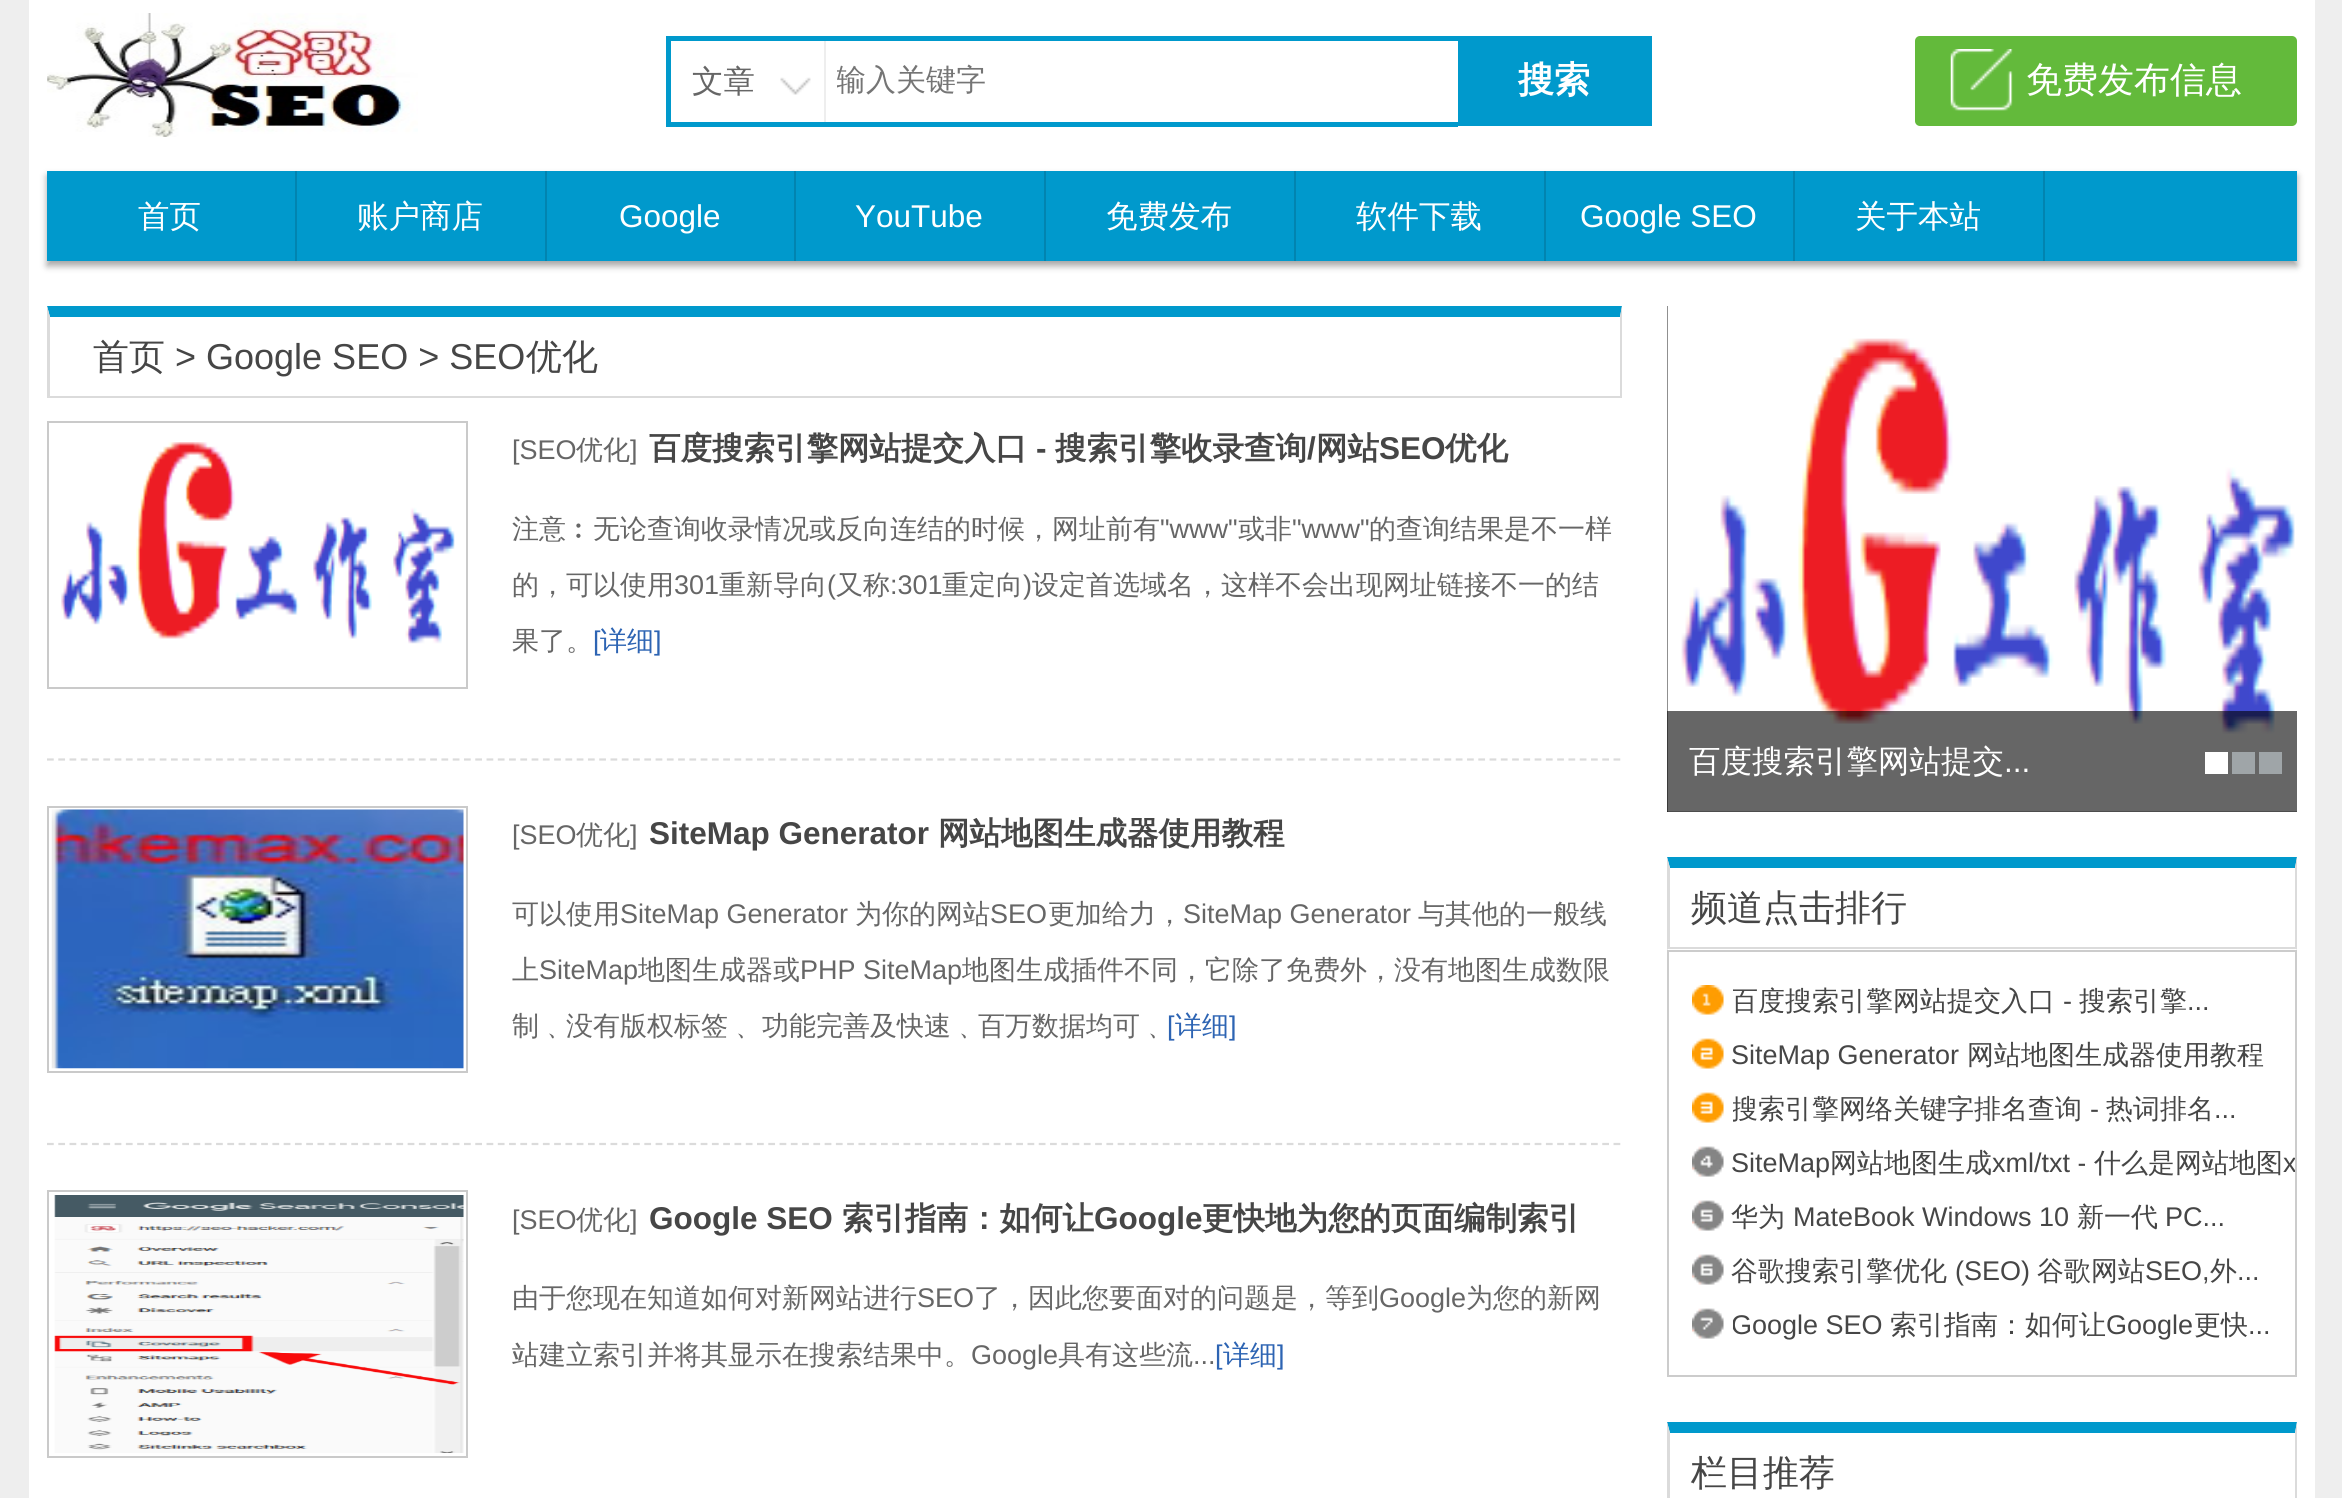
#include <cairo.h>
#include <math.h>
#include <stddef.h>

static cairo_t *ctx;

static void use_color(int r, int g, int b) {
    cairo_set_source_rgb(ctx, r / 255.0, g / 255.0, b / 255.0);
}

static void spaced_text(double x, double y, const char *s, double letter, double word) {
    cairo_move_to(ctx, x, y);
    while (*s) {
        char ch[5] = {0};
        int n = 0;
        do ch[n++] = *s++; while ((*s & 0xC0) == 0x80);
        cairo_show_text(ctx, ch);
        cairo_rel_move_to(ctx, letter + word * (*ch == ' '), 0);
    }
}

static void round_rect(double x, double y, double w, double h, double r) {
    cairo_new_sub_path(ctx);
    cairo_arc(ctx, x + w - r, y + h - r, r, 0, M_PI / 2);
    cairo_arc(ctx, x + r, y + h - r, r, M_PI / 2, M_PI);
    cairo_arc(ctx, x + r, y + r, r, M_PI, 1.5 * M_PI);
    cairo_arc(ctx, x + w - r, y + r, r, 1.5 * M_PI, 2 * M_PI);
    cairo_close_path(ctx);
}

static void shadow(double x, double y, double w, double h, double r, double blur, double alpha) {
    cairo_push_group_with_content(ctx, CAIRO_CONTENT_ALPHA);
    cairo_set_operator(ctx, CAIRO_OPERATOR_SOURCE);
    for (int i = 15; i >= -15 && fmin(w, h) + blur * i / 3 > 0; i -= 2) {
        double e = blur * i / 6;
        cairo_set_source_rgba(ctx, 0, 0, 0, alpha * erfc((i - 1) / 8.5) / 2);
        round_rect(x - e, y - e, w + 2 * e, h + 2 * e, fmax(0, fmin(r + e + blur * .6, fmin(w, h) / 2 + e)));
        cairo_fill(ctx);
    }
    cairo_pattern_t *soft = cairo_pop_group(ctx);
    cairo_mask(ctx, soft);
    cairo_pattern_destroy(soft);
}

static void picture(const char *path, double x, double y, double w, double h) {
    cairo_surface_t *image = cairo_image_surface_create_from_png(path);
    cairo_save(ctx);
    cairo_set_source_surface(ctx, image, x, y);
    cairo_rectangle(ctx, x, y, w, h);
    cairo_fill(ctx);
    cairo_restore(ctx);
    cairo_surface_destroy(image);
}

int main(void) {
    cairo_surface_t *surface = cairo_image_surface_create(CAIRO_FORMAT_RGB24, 2342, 1498);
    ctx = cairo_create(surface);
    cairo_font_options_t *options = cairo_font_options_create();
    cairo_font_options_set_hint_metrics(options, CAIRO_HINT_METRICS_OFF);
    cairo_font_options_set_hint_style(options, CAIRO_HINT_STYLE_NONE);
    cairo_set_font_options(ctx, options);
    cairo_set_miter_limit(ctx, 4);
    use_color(238, 238, 238);
    cairo_paint(ctx);
    use_color(255, 255, 255);
    cairo_rectangle(ctx, 29, 0, 2286, 1498);
    cairo_fill(ctx);
    picture("img1.png", 47, 13, 371, 124);
    use_color(0, 153, 204);
    cairo_rectangle(ctx, 666, 36, 792, 5);
    cairo_fill(ctx);
    cairo_rectangle(ctx, 666, 122, 792, 5);
    cairo_fill(ctx);
    cairo_rectangle(ctx, 666, 36, 5, 90);
    cairo_fill(ctx);
    use_color(238, 238, 238);
    cairo_rectangle(ctx, 824, 41, 2, 81);
    cairo_fill(ctx);
    picture("img2.png", 780, 77, 31, 18);
    cairo_select_font_face(ctx, "WenQuanYi Zen Hei Medium", CAIRO_FONT_SLANT_NORMAL, CAIRO_FONT_WEIGHT_NORMAL);
    cairo_set_font_size(ctx, 31.5);
    use_color(102, 102, 102);
    cairo_move_to(ctx, 692, 92);
    cairo_show_text(ctx, "文章");
    cairo_save(ctx);
    cairo_rectangle(ctx, 837, 61, 603, 40);
    cairo_clip(ctx);
    cairo_set_font_size(ctx, 30);
    use_color(117, 117, 117);
    cairo_move_to(ctx, 836, 90);
    cairo_show_text(ctx, "输入关键字");
    cairo_restore(ctx);
    use_color(0, 153, 204);
    cairo_rectangle(ctx, 1458, 36, 194, 90);
    cairo_fill(ctx);
    cairo_select_font_face(ctx, "WenQuanYi Zen Hei", CAIRO_FONT_SLANT_NORMAL, CAIRO_FONT_WEIGHT_BOLD);
    cairo_set_font_size(ctx, 36);
    use_color(255, 255, 255);
    cairo_move_to(ctx, 1518, 92);
    cairo_show_text(ctx, "搜索");
    use_color(99, 186, 59);
    round_rect(1915, 36, 382, 90, 5);
    cairo_fill(ctx);
    picture("img3.png", 1950, 49, 63, 62);
    cairo_select_font_face(ctx, "WenQuanYi Zen Hei Medium", CAIRO_FONT_SLANT_NORMAL, CAIRO_FONT_WEIGHT_NORMAL);
    use_color(255, 255, 255);
    cairo_move_to(ctx, 2026, 92);
    cairo_show_text(ctx, "免费发布信息");
    use_color(166, 166, 166);
    shadow(47, 176, 2250, 90, 0, 3.5, 1);
    use_color(0, 153, 204);
    cairo_rectangle(ctx, 47, 171, 2250, 90);
    cairo_fill(ctx);
    use_color(1, 132, 176);
    cairo_rectangle(ctx, 295, 171, 2, 90);
    cairo_fill(ctx);
    cairo_set_font_size(ctx, 31.5);
    use_color(255, 255, 255);
    cairo_move_to(ctx, 138, 227);
    cairo_show_text(ctx, "首页");
    use_color(1, 132, 176);
    cairo_rectangle(ctx, 545, 171, 2, 90);
    cairo_fill(ctx);
    use_color(255, 255, 255);
    cairo_move_to(ctx, 357, 227);
    cairo_show_text(ctx, "账户商店");
    use_color(1, 132, 176);
    cairo_rectangle(ctx, 794, 171, 2, 90);
    cairo_fill(ctx);
    cairo_select_font_face(ctx, "Liberation Sans", CAIRO_FONT_SLANT_NORMAL, CAIRO_FONT_WEIGHT_NORMAL);
    use_color(255, 255, 255);
    cairo_move_to(ctx, 619, 227);
    cairo_show_text(ctx, "Google");
    use_color(1, 132, 176);
    cairo_rectangle(ctx, 1044, 171, 2, 90);
    cairo_fill(ctx);
    use_color(255, 255, 255);
    cairo_move_to(ctx, 855, 227);
    cairo_show_text(ctx, "YouTube");
    use_color(1, 132, 176);
    cairo_rectangle(ctx, 1294, 171, 2, 90);
    cairo_fill(ctx);
    cairo_select_font_face(ctx, "WenQuanYi Zen Hei Medium", CAIRO_FONT_SLANT_NORMAL, CAIRO_FONT_WEIGHT_NORMAL);
    use_color(255, 255, 255);
    cairo_move_to(ctx, 1106, 227);
    cairo_show_text(ctx, "免费发布");
    use_color(1, 132, 176);
    cairo_rectangle(ctx, 1544, 171, 2, 90);
    cairo_fill(ctx);
    use_color(255, 255, 255);
    cairo_move_to(ctx, 1356, 227);
    cairo_show_text(ctx, "软件下载");
    use_color(1, 132, 176);
    cairo_rectangle(ctx, 1793, 171, 2, 90);
    cairo_fill(ctx);
    cairo_select_font_face(ctx, "Liberation Sans", CAIRO_FONT_SLANT_NORMAL, CAIRO_FONT_WEIGHT_NORMAL);
    use_color(255, 255, 255);
    cairo_move_to(ctx, 1580, 227);
    cairo_show_text(ctx, "Google SEO");
    use_color(1, 132, 176);
    cairo_rectangle(ctx, 2043, 171, 2, 90);
    cairo_fill(ctx);
    cairo_select_font_face(ctx, "WenQuanYi Zen Hei Medium", CAIRO_FONT_SLANT_NORMAL, CAIRO_FONT_WEIGHT_NORMAL);
    use_color(255, 255, 255);
    cairo_move_to(ctx, 1855, 227);
    cairo_show_text(ctx, "关于本站");
    use_color(0, 153, 204);
    cairo_new_path(ctx);
    cairo_move_to(ctx, 47, 306);
    cairo_line_to(ctx, 1622, 306);
    cairo_line_to(ctx, 1620, 317);
    cairo_line_to(ctx, 50, 317);
    cairo_close_path(ctx);
    cairo_fill(ctx);
    use_color(219, 219, 219);
    cairo_new_path(ctx);
    cairo_move_to(ctx, 1622, 306);
    cairo_line_to(ctx, 1622, 398);
    cairo_line_to(ctx, 1620, 396);
    cairo_line_to(ctx, 1620, 317);
    cairo_close_path(ctx);
    cairo_fill(ctx);
    cairo_rectangle(ctx, 47, 396, 1575, 2);
    cairo_fill(ctx);
    cairo_new_path(ctx);
    cairo_move_to(ctx, 47, 398);
    cairo_line_to(ctx, 47, 306);
    cairo_line_to(ctx, 50, 317);
    cairo_line_to(ctx, 50, 396);
    cairo_close_path(ctx);
    cairo_fill(ctx);
    cairo_set_font_size(ctx, 36);
    use_color(70, 70, 70);
    cairo_move_to(ctx, 93, 369);
    cairo_show_text(ctx, "首页");
    cairo_select_font_face(ctx, "Liberation Sans", CAIRO_FONT_SLANT_NORMAL, CAIRO_FONT_WEIGHT_NORMAL);
    cairo_move_to(ctx, 175, 369);
    cairo_show_text(ctx, "> Google SEO > SEO");
    cairo_select_font_face(ctx, "WenQuanYi Zen Hei Medium", CAIRO_FONT_SLANT_NORMAL, CAIRO_FONT_WEIGHT_NORMAL);
    cairo_move_to(ctx, 526, 369);
    cairo_show_text(ctx, "优化");
    cairo_new_path(ctx);
    cairo_move_to(ctx, 47, 759.5);
    cairo_line_to(ctx, 1622, 759.5);
    use_color(219, 219, 219);
    cairo_set_line_width(ctx, 2.2);
    cairo_set_dash(ctx, (double[]){6.75, 4.52}, 2, 0);
    cairo_stroke(ctx);
    cairo_rectangle(ctx, 48, 422, 419, 266);
    use_color(202, 202, 202);
    cairo_set_line_width(ctx, 2);
    cairo_set_dash(ctx, NULL, 0, 0);
    cairo_stroke(ctx);
    picture("img4.png", 61, 442, 394, 202);
    cairo_select_font_face(ctx, "Liberation Sans", CAIRO_FONT_SLANT_NORMAL, CAIRO_FONT_WEIGHT_NORMAL);
    cairo_set_font_size(ctx, 27);
    use_color(102, 102, 102);
    cairo_move_to(ctx, 512, 459);
    cairo_show_text(ctx, "[SEO");
    cairo_select_font_face(ctx, "WenQuanYi Zen Hei Medium", CAIRO_FONT_SLANT_NORMAL, CAIRO_FONT_WEIGHT_NORMAL);
    cairo_move_to(ctx, 576, 459);
    cairo_show_text(ctx, "优化");
    cairo_select_font_face(ctx, "Liberation Sans", CAIRO_FONT_SLANT_NORMAL, CAIRO_FONT_WEIGHT_NORMAL);
    cairo_move_to(ctx, 630, 459);
    cairo_show_text(ctx, "]");
    cairo_select_font_face(ctx, "WenQuanYi Zen Hei", CAIRO_FONT_SLANT_NORMAL, CAIRO_FONT_WEIGHT_BOLD);
    cairo_set_font_size(ctx, 31.5);
    use_color(70, 70, 70);
    cairo_move_to(ctx, 649, 459);
    cairo_show_text(ctx, "百度搜索引擎网站提交入口");
    cairo_select_font_face(ctx, "Liberation Sans", CAIRO_FONT_SLANT_NORMAL, CAIRO_FONT_WEIGHT_BOLD);
    cairo_move_to(ctx, 1036, 459);
    cairo_show_text(ctx, "-");
    cairo_select_font_face(ctx, "WenQuanYi Zen Hei", CAIRO_FONT_SLANT_NORMAL, CAIRO_FONT_WEIGHT_BOLD);
    cairo_move_to(ctx, 1055, 459);
    cairo_show_text(ctx, "搜索引擎收录查询");
    cairo_select_font_face(ctx, "Liberation Sans", CAIRO_FONT_SLANT_NORMAL, CAIRO_FONT_WEIGHT_BOLD);
    cairo_move_to(ctx, 1307, 459);
    cairo_show_text(ctx, "/");
    cairo_select_font_face(ctx, "WenQuanYi Zen Hei", CAIRO_FONT_SLANT_NORMAL, CAIRO_FONT_WEIGHT_BOLD);
    cairo_move_to(ctx, 1316, 459);
    cairo_show_text(ctx, "网站");
    cairo_select_font_face(ctx, "Liberation Sans", CAIRO_FONT_SLANT_NORMAL, CAIRO_FONT_WEIGHT_BOLD);
    cairo_move_to(ctx, 1379, 459);
    cairo_show_text(ctx, "SEO");
    cairo_select_font_face(ctx, "WenQuanYi Zen Hei", CAIRO_FONT_SLANT_NORMAL, CAIRO_FONT_WEIGHT_BOLD);
    cairo_move_to(ctx, 1445, 459);
    cairo_show_text(ctx, "优化");
    cairo_select_font_face(ctx, "WenQuanYi Zen Hei Medium", CAIRO_FONT_SLANT_NORMAL, CAIRO_FONT_WEIGHT_NORMAL);
    cairo_set_font_size(ctx, 27);
    use_color(102, 102, 102);
    cairo_move_to(ctx, 512, 538);
    cairo_show_text(ctx, "注意︰无论查询收录情况或反向连结的时候，网址前有");
    cairo_select_font_face(ctx, "Liberation Sans", CAIRO_FONT_SLANT_NORMAL, CAIRO_FONT_WEIGHT_NORMAL);
    cairo_move_to(ctx, 1160, 538);
    cairo_show_text(ctx, "\"www\"");
    cairo_select_font_face(ctx, "WenQuanYi Zen Hei Medium", CAIRO_FONT_SLANT_NORMAL, CAIRO_FONT_WEIGHT_NORMAL);
    cairo_move_to(ctx, 1238, 538);
    cairo_show_text(ctx, "或非");
    cairo_select_font_face(ctx, "Liberation Sans", CAIRO_FONT_SLANT_NORMAL, CAIRO_FONT_WEIGHT_NORMAL);
    cairo_move_to(ctx, 1292, 538);
    cairo_show_text(ctx, "\"www\"");
    cairo_select_font_face(ctx, "WenQuanYi Zen Hei Medium", CAIRO_FONT_SLANT_NORMAL, CAIRO_FONT_WEIGHT_NORMAL);
    cairo_move_to(ctx, 1369, 538);
    cairo_show_text(ctx, "的查询结果是不一样");
    cairo_move_to(ctx, 512, 594);
    cairo_show_text(ctx, "的，可以使用");
    cairo_select_font_face(ctx, "Liberation Sans", CAIRO_FONT_SLANT_NORMAL, CAIRO_FONT_WEIGHT_NORMAL);
    cairo_move_to(ctx, 674, 594);
    cairo_show_text(ctx, "301");
    cairo_select_font_face(ctx, "WenQuanYi Zen Hei Medium", CAIRO_FONT_SLANT_NORMAL, CAIRO_FONT_WEIGHT_NORMAL);
    cairo_move_to(ctx, 719, 594);
    cairo_show_text(ctx, "重新导向");
    cairo_select_font_face(ctx, "Liberation Sans", CAIRO_FONT_SLANT_NORMAL, CAIRO_FONT_WEIGHT_NORMAL);
    cairo_move_to(ctx, 827, 594);
    cairo_show_text(ctx, "(");
    cairo_select_font_face(ctx, "WenQuanYi Zen Hei Medium", CAIRO_FONT_SLANT_NORMAL, CAIRO_FONT_WEIGHT_NORMAL);
    cairo_move_to(ctx, 836, 594);
    cairo_show_text(ctx, "又称");
    cairo_select_font_face(ctx, "Liberation Sans", CAIRO_FONT_SLANT_NORMAL, CAIRO_FONT_WEIGHT_NORMAL);
    cairo_move_to(ctx, 890, 594);
    cairo_show_text(ctx, ":301");
    cairo_select_font_face(ctx, "WenQuanYi Zen Hei Medium", CAIRO_FONT_SLANT_NORMAL, CAIRO_FONT_WEIGHT_NORMAL);
    cairo_move_to(ctx, 942, 594);
    cairo_show_text(ctx, "重定向");
    cairo_select_font_face(ctx, "Liberation Sans", CAIRO_FONT_SLANT_NORMAL, CAIRO_FONT_WEIGHT_NORMAL);
    cairo_move_to(ctx, 1023, 594);
    cairo_show_text(ctx, ")");
    cairo_select_font_face(ctx, "WenQuanYi Zen Hei Medium", CAIRO_FONT_SLANT_NORMAL, CAIRO_FONT_WEIGHT_NORMAL);
    cairo_move_to(ctx, 1032, 594);
    cairo_show_text(ctx, "设定首选域名，这样不会出现网址链接不一的结");
    cairo_move_to(ctx, 512, 650);
    cairo_show_text(ctx, "果了。");
    cairo_select_font_face(ctx, "Liberation Sans", CAIRO_FONT_SLANT_NORMAL, CAIRO_FONT_WEIGHT_NORMAL);
    use_color(45, 100, 179);
    cairo_move_to(ctx, 593, 650);
    cairo_show_text(ctx, "[");
    cairo_select_font_face(ctx, "WenQuanYi Zen Hei Medium", CAIRO_FONT_SLANT_NORMAL, CAIRO_FONT_WEIGHT_NORMAL);
    cairo_move_to(ctx, 600, 650);
    cairo_show_text(ctx, "详细");
    cairo_select_font_face(ctx, "Liberation Sans", CAIRO_FONT_SLANT_NORMAL, CAIRO_FONT_WEIGHT_NORMAL);
    cairo_move_to(ctx, 654, 650);
    cairo_show_text(ctx, "]");
    cairo_new_path(ctx);
    cairo_move_to(ctx, 47, 1144);
    cairo_line_to(ctx, 1622, 1144);
    use_color(219, 219, 219);
    cairo_set_line_width(ctx, 2.2);
    cairo_set_dash(ctx, (double[]){6.75, 4.52}, 2, 0);
    cairo_stroke(ctx);
    cairo_rectangle(ctx, 48, 807, 419, 265);
    use_color(202, 202, 202);
    cairo_set_line_width(ctx, 2);
    cairo_set_dash(ctx, NULL, 0, 0);
    cairo_stroke(ctx);
    picture("img5.png", 51, 809, 413, 260);
    use_color(102, 102, 102);
    cairo_move_to(ctx, 512, 844);
    cairo_show_text(ctx, "[SEO");
    cairo_select_font_face(ctx, "WenQuanYi Zen Hei Medium", CAIRO_FONT_SLANT_NORMAL, CAIRO_FONT_WEIGHT_NORMAL);
    cairo_move_to(ctx, 576, 844);
    cairo_show_text(ctx, "优化");
    cairo_select_font_face(ctx, "Liberation Sans", CAIRO_FONT_SLANT_NORMAL, CAIRO_FONT_WEIGHT_NORMAL);
    cairo_move_to(ctx, 630, 844);
    cairo_show_text(ctx, "]");
    cairo_select_font_face(ctx, "Liberation Sans", CAIRO_FONT_SLANT_NORMAL, CAIRO_FONT_WEIGHT_BOLD);
    cairo_set_font_size(ctx, 31.5);
    use_color(70, 70, 70);
    cairo_move_to(ctx, 649, 844);
    cairo_show_text(ctx, "SiteMap Generator");
    cairo_select_font_face(ctx, "WenQuanYi Zen Hei", CAIRO_FONT_SLANT_NORMAL, CAIRO_FONT_WEIGHT_BOLD);
    cairo_move_to(ctx, 938, 844);
    cairo_show_text(ctx, "网站地图生成器使用教程");
    cairo_select_font_face(ctx, "WenQuanYi Zen Hei Medium", CAIRO_FONT_SLANT_NORMAL, CAIRO_FONT_WEIGHT_NORMAL);
    cairo_set_font_size(ctx, 27);
    use_color(102, 102, 102);
    cairo_move_to(ctx, 512, 923);
    cairo_show_text(ctx, "可以使用");
    cairo_select_font_face(ctx, "Liberation Sans", CAIRO_FONT_SLANT_NORMAL, CAIRO_FONT_WEIGHT_NORMAL);
    cairo_move_to(ctx, 620, 923);
    cairo_show_text(ctx, "SiteMap Generator");
    cairo_select_font_face(ctx, "WenQuanYi Zen Hei Medium", CAIRO_FONT_SLANT_NORMAL, CAIRO_FONT_WEIGHT_NORMAL);
    cairo_move_to(ctx, 855, 923);
    cairo_show_text(ctx, "为你的网站");
    cairo_select_font_face(ctx, "Liberation Sans", CAIRO_FONT_SLANT_NORMAL, CAIRO_FONT_WEIGHT_NORMAL);
    cairo_move_to(ctx, 990, 923);
    cairo_show_text(ctx, "SEO");
    cairo_select_font_face(ctx, "WenQuanYi Zen Hei Medium", CAIRO_FONT_SLANT_NORMAL, CAIRO_FONT_WEIGHT_NORMAL);
    cairo_move_to(ctx, 1048, 923);
    cairo_show_text(ctx, "更加给力，");
    cairo_select_font_face(ctx, "Liberation Sans", CAIRO_FONT_SLANT_NORMAL, CAIRO_FONT_WEIGHT_NORMAL);
    cairo_move_to(ctx, 1183, 923);
    cairo_show_text(ctx, "SiteMap Generator");
    cairo_select_font_face(ctx, "WenQuanYi Zen Hei Medium", CAIRO_FONT_SLANT_NORMAL, CAIRO_FONT_WEIGHT_NORMAL);
    cairo_move_to(ctx, 1418, 923);
    cairo_show_text(ctx, "与其他的一般线");
    cairo_move_to(ctx, 512, 979);
    cairo_show_text(ctx, "上");
    cairo_select_font_face(ctx, "Liberation Sans", CAIRO_FONT_SLANT_NORMAL, CAIRO_FONT_WEIGHT_NORMAL);
    cairo_move_to(ctx, 539, 979);
    cairo_show_text(ctx, "SiteMap");
    cairo_select_font_face(ctx, "WenQuanYi Zen Hei Medium", CAIRO_FONT_SLANT_NORMAL, CAIRO_FONT_WEIGHT_NORMAL);
    cairo_move_to(ctx, 638, 979);
    cairo_show_text(ctx, "地图生成器或");
    cairo_select_font_face(ctx, "Liberation Sans", CAIRO_FONT_SLANT_NORMAL, CAIRO_FONT_WEIGHT_NORMAL);
    cairo_move_to(ctx, 800, 979);
    cairo_show_text(ctx, "PHP SiteMap");
    cairo_select_font_face(ctx, "WenQuanYi Zen Hei Medium", CAIRO_FONT_SLANT_NORMAL, CAIRO_FONT_WEIGHT_NORMAL);
    cairo_move_to(ctx, 962, 979);
    cairo_show_text(ctx, "地图生成插件不同，它除了免费外，没有地图生成数限");
    spaced_text(512, 1035, "制﹑没有版权标签﹑ 功能完善及快速﹑百万数据均可﹑", 0, -1);
    cairo_select_font_face(ctx, "Liberation Sans", CAIRO_FONT_SLANT_NORMAL, CAIRO_FONT_WEIGHT_NORMAL);
    use_color(45, 100, 179);
    cairo_move_to(ctx, 1167, 1035);
    cairo_show_text(ctx, "[");
    cairo_select_font_face(ctx, "WenQuanYi Zen Hei Medium", CAIRO_FONT_SLANT_NORMAL, CAIRO_FONT_WEIGHT_NORMAL);
    cairo_move_to(ctx, 1175, 1035);
    cairo_show_text(ctx, "详细");
    cairo_select_font_face(ctx, "Liberation Sans", CAIRO_FONT_SLANT_NORMAL, CAIRO_FONT_WEIGHT_NORMAL);
    cairo_move_to(ctx, 1229, 1035);
    cairo_show_text(ctx, "]");
    cairo_rectangle(ctx, 48, 1191, 419, 266);
    use_color(202, 202, 202);
    cairo_stroke(ctx);
    picture("img6.png", 54, 1195, 410, 258);
    use_color(102, 102, 102);
    cairo_move_to(ctx, 512, 1229);
    cairo_show_text(ctx, "[SEO");
    cairo_select_font_face(ctx, "WenQuanYi Zen Hei Medium", CAIRO_FONT_SLANT_NORMAL, CAIRO_FONT_WEIGHT_NORMAL);
    cairo_move_to(ctx, 576, 1229);
    cairo_show_text(ctx, "优化");
    cairo_select_font_face(ctx, "Liberation Sans", CAIRO_FONT_SLANT_NORMAL, CAIRO_FONT_WEIGHT_NORMAL);
    cairo_move_to(ctx, 630, 1229);
    cairo_show_text(ctx, "]");
    cairo_select_font_face(ctx, "Liberation Sans", CAIRO_FONT_SLANT_NORMAL, CAIRO_FONT_WEIGHT_BOLD);
    cairo_set_font_size(ctx, 31.5);
    use_color(70, 70, 70);
    cairo_move_to(ctx, 649, 1229);
    cairo_show_text(ctx, "Google SEO");
    cairo_select_font_face(ctx, "WenQuanYi Zen Hei", CAIRO_FONT_SLANT_NORMAL, CAIRO_FONT_WEIGHT_BOLD);
    cairo_move_to(ctx, 842, 1229);
    cairo_show_text(ctx, "索引指南：如何让");
    cairo_select_font_face(ctx, "Liberation Sans", CAIRO_FONT_SLANT_NORMAL, CAIRO_FONT_WEIGHT_BOLD);
    cairo_move_to(ctx, 1094, 1229);
    cairo_show_text(ctx, "Google");
    cairo_select_font_face(ctx, "WenQuanYi Zen Hei", CAIRO_FONT_SLANT_NORMAL, CAIRO_FONT_WEIGHT_BOLD);
    cairo_move_to(ctx, 1202, 1229);
    cairo_show_text(ctx, "更快地为您的页面编制索引");
    cairo_select_font_face(ctx, "WenQuanYi Zen Hei Medium", CAIRO_FONT_SLANT_NORMAL, CAIRO_FONT_WEIGHT_NORMAL);
    cairo_set_font_size(ctx, 27);
    use_color(102, 102, 102);
    cairo_move_to(ctx, 512, 1307);
    cairo_show_text(ctx, "由于您现在知道如何对新网站进行");
    cairo_select_font_face(ctx, "Liberation Sans", CAIRO_FONT_SLANT_NORMAL, CAIRO_FONT_WEIGHT_NORMAL);
    cairo_move_to(ctx, 917, 1307);
    cairo_show_text(ctx, "SEO");
    cairo_select_font_face(ctx, "WenQuanYi Zen Hei Medium", CAIRO_FONT_SLANT_NORMAL, CAIRO_FONT_WEIGHT_NORMAL);
    cairo_move_to(ctx, 974, 1307);
    cairo_show_text(ctx, "了，因此您要面对的问题是，等到");
    cairo_select_font_face(ctx, "Liberation Sans", CAIRO_FONT_SLANT_NORMAL, CAIRO_FONT_WEIGHT_NORMAL);
    cairo_move_to(ctx, 1379, 1307);
    cairo_show_text(ctx, "Google");
    cairo_select_font_face(ctx, "WenQuanYi Zen Hei Medium", CAIRO_FONT_SLANT_NORMAL, CAIRO_FONT_WEIGHT_NORMAL);
    cairo_move_to(ctx, 1466, 1307);
    cairo_show_text(ctx, "为您的新网");
    cairo_move_to(ctx, 512, 1364);
    cairo_show_text(ctx, "站建立索引并将其显示在搜索结果中。");
    cairo_select_font_face(ctx, "Liberation Sans", CAIRO_FONT_SLANT_NORMAL, CAIRO_FONT_WEIGHT_NORMAL);
    cairo_move_to(ctx, 971, 1364);
    cairo_show_text(ctx, "Google");
    cairo_select_font_face(ctx, "WenQuanYi Zen Hei Medium", CAIRO_FONT_SLANT_NORMAL, CAIRO_FONT_WEIGHT_NORMAL);
    cairo_move_to(ctx, 1058, 1364);
    cairo_show_text(ctx, "具有这些流");
    cairo_select_font_face(ctx, "Liberation Sans", CAIRO_FONT_SLANT_NORMAL, CAIRO_FONT_WEIGHT_NORMAL);
    cairo_move_to(ctx, 1193, 1364);
    cairo_show_text(ctx, "...");
    use_color(45, 100, 179);
    cairo_move_to(ctx, 1215, 1364);
    cairo_show_text(ctx, "[");
    cairo_select_font_face(ctx, "WenQuanYi Zen Hei Medium", CAIRO_FONT_SLANT_NORMAL, CAIRO_FONT_WEIGHT_NORMAL);
    cairo_move_to(ctx, 1223, 1364);
    cairo_show_text(ctx, "详细");
    cairo_select_font_face(ctx, "Liberation Sans", CAIRO_FONT_SLANT_NORMAL, CAIRO_FONT_WEIGHT_NORMAL);
    cairo_move_to(ctx, 1277, 1364);
    cairo_show_text(ctx, "]");
    use_color(0, 0, 0);
    cairo_rectangle(ctx, 1667, 306, 630, 506);
    cairo_fill(ctx);
    picture("img7.png", 1667, 306, 630, 506);
    cairo_set_source_rgba(ctx, 0, 0, 0, 0.6);
    cairo_rectangle(ctx, 1667, 711, 630, 101);
    cairo_fill(ctx);
    cairo_select_font_face(ctx, "WenQuanYi Zen Hei Medium", CAIRO_FONT_SLANT_NORMAL, CAIRO_FONT_WEIGHT_NORMAL);
    cairo_set_font_size(ctx, 31.5);
    use_color(255, 255, 255);
    cairo_move_to(ctx, 1689, 772);
    cairo_show_text(ctx, "百度搜索引擎网站提交");
    cairo_select_font_face(ctx, "Liberation Sans", CAIRO_FONT_SLANT_NORMAL, CAIRO_FONT_WEIGHT_NORMAL);
    cairo_move_to(ctx, 2004, 772);
    cairo_show_text(ctx, "...");
    cairo_rectangle(ctx, 2205, 752, 23, 22);
    cairo_fill(ctx);
    use_color(159, 165, 168);
    cairo_rectangle(ctx, 2232, 752, 23, 22);
    cairo_fill(ctx);
    cairo_rectangle(ctx, 2259, 752, 23, 22);
    cairo_fill(ctx);
    use_color(0, 153, 204);
    cairo_new_path(ctx);
    cairo_move_to(ctx, 1667, 857);
    cairo_line_to(ctx, 2297, 857);
    cairo_line_to(ctx, 2295, 868);
    cairo_line_to(ctx, 1670, 868);
    cairo_close_path(ctx);
    cairo_fill(ctx);
    use_color(219, 219, 219);
    cairo_new_path(ctx);
    cairo_move_to(ctx, 2297, 857);
    cairo_line_to(ctx, 2297, 950);
    cairo_line_to(ctx, 2295, 947);
    cairo_line_to(ctx, 2295, 868);
    cairo_close_path(ctx);
    cairo_fill(ctx);
    cairo_rectangle(ctx, 1667, 947, 630, 2);
    cairo_fill(ctx);
    cairo_new_path(ctx);
    cairo_move_to(ctx, 1667, 950);
    cairo_line_to(ctx, 1667, 857);
    cairo_line_to(ctx, 1670, 868);
    cairo_line_to(ctx, 1670, 947);
    cairo_close_path(ctx);
    cairo_fill(ctx);
    cairo_select_font_face(ctx, "WenQuanYi Zen Hei Medium", CAIRO_FONT_SLANT_NORMAL, CAIRO_FONT_WEIGHT_NORMAL);
    cairo_set_font_size(ctx, 36);
    use_color(70, 70, 70);
    cairo_move_to(ctx, 1691, 920);
    cairo_show_text(ctx, "频道点击排行");
    cairo_rectangle(ctx, 1668, 951, 628, 425);
    use_color(204, 204, 204);
    cairo_stroke(ctx);
    picture("img8.png", 1692, 985, 32, 354);
    cairo_save(ctx);
    cairo_rectangle(ctx, 1733, 974, 562, 54);
    cairo_clip(ctx);
    cairo_set_font_size(ctx, 27);
    use_color(70, 70, 70);
    cairo_move_to(ctx, 1731, 1010);
    cairo_show_text(ctx, "百度搜索引擎网站提交入口");
    cairo_restore(ctx);
    cairo_select_font_face(ctx, "Liberation Sans", CAIRO_FONT_SLANT_NORMAL, CAIRO_FONT_WEIGHT_NORMAL);
    cairo_set_font_size(ctx, 27);
    use_color(70, 70, 70);
    cairo_move_to(ctx, 2063, 1010);
    cairo_show_text(ctx, "-");
    cairo_select_font_face(ctx, "WenQuanYi Zen Hei Medium", CAIRO_FONT_SLANT_NORMAL, CAIRO_FONT_WEIGHT_NORMAL);
    cairo_move_to(ctx, 2079, 1010);
    cairo_show_text(ctx, "搜索引擎");
    cairo_select_font_face(ctx, "Liberation Sans", CAIRO_FONT_SLANT_NORMAL, CAIRO_FONT_WEIGHT_NORMAL);
    cairo_move_to(ctx, 2187, 1010);
    cairo_show_text(ctx, "...");
    cairo_move_to(ctx, 1731, 1064);
    cairo_show_text(ctx, "SiteMap Generator");
    cairo_select_font_face(ctx, "WenQuanYi Zen Hei Medium", CAIRO_FONT_SLANT_NORMAL, CAIRO_FONT_WEIGHT_NORMAL);
    cairo_move_to(ctx, 1967, 1064);
    cairo_show_text(ctx, "网站地图生成器使用教程");
    cairo_save(ctx);
    cairo_rectangle(ctx, 1733, 1082, 562, 54);
    cairo_clip(ctx);
    cairo_move_to(ctx, 1731, 1118);
    cairo_show_text(ctx, "搜索引擎网络关键字排名查询");
    cairo_restore(ctx);
    cairo_select_font_face(ctx, "Liberation Sans", CAIRO_FONT_SLANT_NORMAL, CAIRO_FONT_WEIGHT_NORMAL);
    cairo_move_to(ctx, 2090, 1118);
    cairo_show_text(ctx, "-");
    cairo_select_font_face(ctx, "WenQuanYi Zen Hei Medium", CAIRO_FONT_SLANT_NORMAL, CAIRO_FONT_WEIGHT_NORMAL);
    cairo_move_to(ctx, 2106, 1118);
    cairo_show_text(ctx, "热词排名");
    cairo_select_font_face(ctx, "Liberation Sans", CAIRO_FONT_SLANT_NORMAL, CAIRO_FONT_WEIGHT_NORMAL);
    cairo_move_to(ctx, 2214, 1118);
    cairo_show_text(ctx, "...");
    cairo_move_to(ctx, 1731, 1172);
    cairo_show_text(ctx, "SiteMap");
    cairo_select_font_face(ctx, "WenQuanYi Zen Hei Medium", CAIRO_FONT_SLANT_NORMAL, CAIRO_FONT_WEIGHT_NORMAL);
    cairo_move_to(ctx, 1830, 1172);
    cairo_show_text(ctx, "网站地图生成");
    cairo_select_font_face(ctx, "Liberation Sans", CAIRO_FONT_SLANT_NORMAL, CAIRO_FONT_WEIGHT_NORMAL);
    cairo_move_to(ctx, 1992, 1172);
    cairo_show_text(ctx, "xml/txt -");
    cairo_select_font_face(ctx, "WenQuanYi Zen Hei Medium", CAIRO_FONT_SLANT_NORMAL, CAIRO_FONT_WEIGHT_NORMAL);
    cairo_move_to(ctx, 2094, 1172);
    cairo_show_text(ctx, "什么是网站地图");
    cairo_save(ctx);
    cairo_rectangle(ctx, 1733, 1136, 562, 54);
    cairo_clip(ctx);
    cairo_select_font_face(ctx, "Liberation Sans", CAIRO_FONT_SLANT_NORMAL, CAIRO_FONT_WEIGHT_NORMAL);
    cairo_move_to(ctx, 2283, 1172);
    cairo_show_text(ctx, "x");
    cairo_restore(ctx);
    cairo_move_to(ctx, 1731, 1226);
    cairo_show_text(ctx, "华为");
    cairo_select_font_face(ctx, "Liberation Sans", CAIRO_FONT_SLANT_NORMAL, CAIRO_FONT_WEIGHT_NORMAL);
    cairo_move_to(ctx, 1793, 1226);
    cairo_show_text(ctx, "MateBook Windows 10");
    cairo_select_font_face(ctx, "WenQuanYi Zen Hei Medium", CAIRO_FONT_SLANT_NORMAL, CAIRO_FONT_WEIGHT_NORMAL);
    cairo_move_to(ctx, 2077, 1226);
    cairo_show_text(ctx, "新一代");
    cairo_select_font_face(ctx, "Liberation Sans", CAIRO_FONT_SLANT_NORMAL, CAIRO_FONT_WEIGHT_NORMAL);
    cairo_move_to(ctx, 2165, 1226);
    cairo_show_text(ctx, "PC...");
    cairo_select_font_face(ctx, "WenQuanYi Zen Hei Medium", CAIRO_FONT_SLANT_NORMAL, CAIRO_FONT_WEIGHT_NORMAL);
    cairo_move_to(ctx, 1731, 1280);
    cairo_show_text(ctx, "谷歌搜索引擎优化");
    cairo_select_font_face(ctx, "Liberation Sans", CAIRO_FONT_SLANT_NORMAL, CAIRO_FONT_WEIGHT_NORMAL);
    cairo_move_to(ctx, 1955, 1280);
    cairo_show_text(ctx, "(SEO)");
    cairo_select_font_face(ctx, "WenQuanYi Zen Hei Medium", CAIRO_FONT_SLANT_NORMAL, CAIRO_FONT_WEIGHT_NORMAL);
    cairo_move_to(ctx, 2037, 1280);
    cairo_show_text(ctx, "谷歌网站");
    cairo_select_font_face(ctx, "Liberation Sans", CAIRO_FONT_SLANT_NORMAL, CAIRO_FONT_WEIGHT_NORMAL);
    cairo_move_to(ctx, 2145, 1280);
    cairo_show_text(ctx, "SEO,");
    cairo_select_font_face(ctx, "WenQuanYi Zen Hei Medium", CAIRO_FONT_SLANT_NORMAL, CAIRO_FONT_WEIGHT_NORMAL);
    cairo_move_to(ctx, 2210, 1280);
    cairo_show_text(ctx, "外");
    cairo_select_font_face(ctx, "Liberation Sans", CAIRO_FONT_SLANT_NORMAL, CAIRO_FONT_WEIGHT_NORMAL);
    cairo_move_to(ctx, 2237, 1280);
    cairo_show_text(ctx, "...");
    cairo_save(ctx);
    cairo_rectangle(ctx, 1733, 1298, 562, 54);
    cairo_clip(ctx);
    cairo_move_to(ctx, 1731, 1334);
    cairo_show_text(ctx, "Google SEO");
    cairo_restore(ctx);
    cairo_select_font_face(ctx, "WenQuanYi Zen Hei Medium", CAIRO_FONT_SLANT_NORMAL, CAIRO_FONT_WEIGHT_NORMAL);
    cairo_move_to(ctx, 1890, 1334);
    cairo_show_text(ctx, "索引指南：如何让");
    cairo_select_font_face(ctx, "Liberation Sans", CAIRO_FONT_SLANT_NORMAL, CAIRO_FONT_WEIGHT_NORMAL);
    cairo_move_to(ctx, 2106, 1334);
    cairo_show_text(ctx, "Google");
    cairo_select_font_face(ctx, "WenQuanYi Zen Hei Medium", CAIRO_FONT_SLANT_NORMAL, CAIRO_FONT_WEIGHT_NORMAL);
    cairo_move_to(ctx, 2194, 1334);
    cairo_show_text(ctx, "更快");
    cairo_select_font_face(ctx, "Liberation Sans", CAIRO_FONT_SLANT_NORMAL, CAIRO_FONT_WEIGHT_NORMAL);
    cairo_move_to(ctx, 2248, 1334);
    cairo_show_text(ctx, "...");
    use_color(0, 153, 204);
    cairo_new_path(ctx);
    cairo_move_to(ctx, 1667, 1422);
    cairo_line_to(ctx, 2297, 1422);
    cairo_line_to(ctx, 2295, 1433);
    cairo_line_to(ctx, 1670, 1433);
    cairo_close_path(ctx);
    cairo_fill(ctx);
    use_color(219, 219, 219);
    cairo_new_path(ctx);
    cairo_move_to(ctx, 2297, 1422);
    cairo_line_to(ctx, 2297, 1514);
    cairo_line_to(ctx, 2295, 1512);
    cairo_line_to(ctx, 2295, 1433);
    cairo_close_path(ctx);
    cairo_fill(ctx);
    cairo_new_path(ctx);
    cairo_move_to(ctx, 1667, 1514);
    cairo_line_to(ctx, 1667, 1422);
    cairo_line_to(ctx, 1670, 1433);
    cairo_line_to(ctx, 1670, 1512);
    cairo_close_path(ctx);
    cairo_fill(ctx);
    cairo_select_font_face(ctx, "WenQuanYi Zen Hei Medium", CAIRO_FONT_SLANT_NORMAL, CAIRO_FONT_WEIGHT_NORMAL);
    cairo_set_font_size(ctx, 36);
    use_color(70, 70, 70);
    cairo_move_to(ctx, 1691, 1485);
    cairo_show_text(ctx, "栏目推荐");
    cairo_surface_write_to_png(surface, "result.png");
    cairo_font_options_destroy(options);
    cairo_destroy(ctx);
    cairo_surface_destroy(surface);
    return 0;
}
